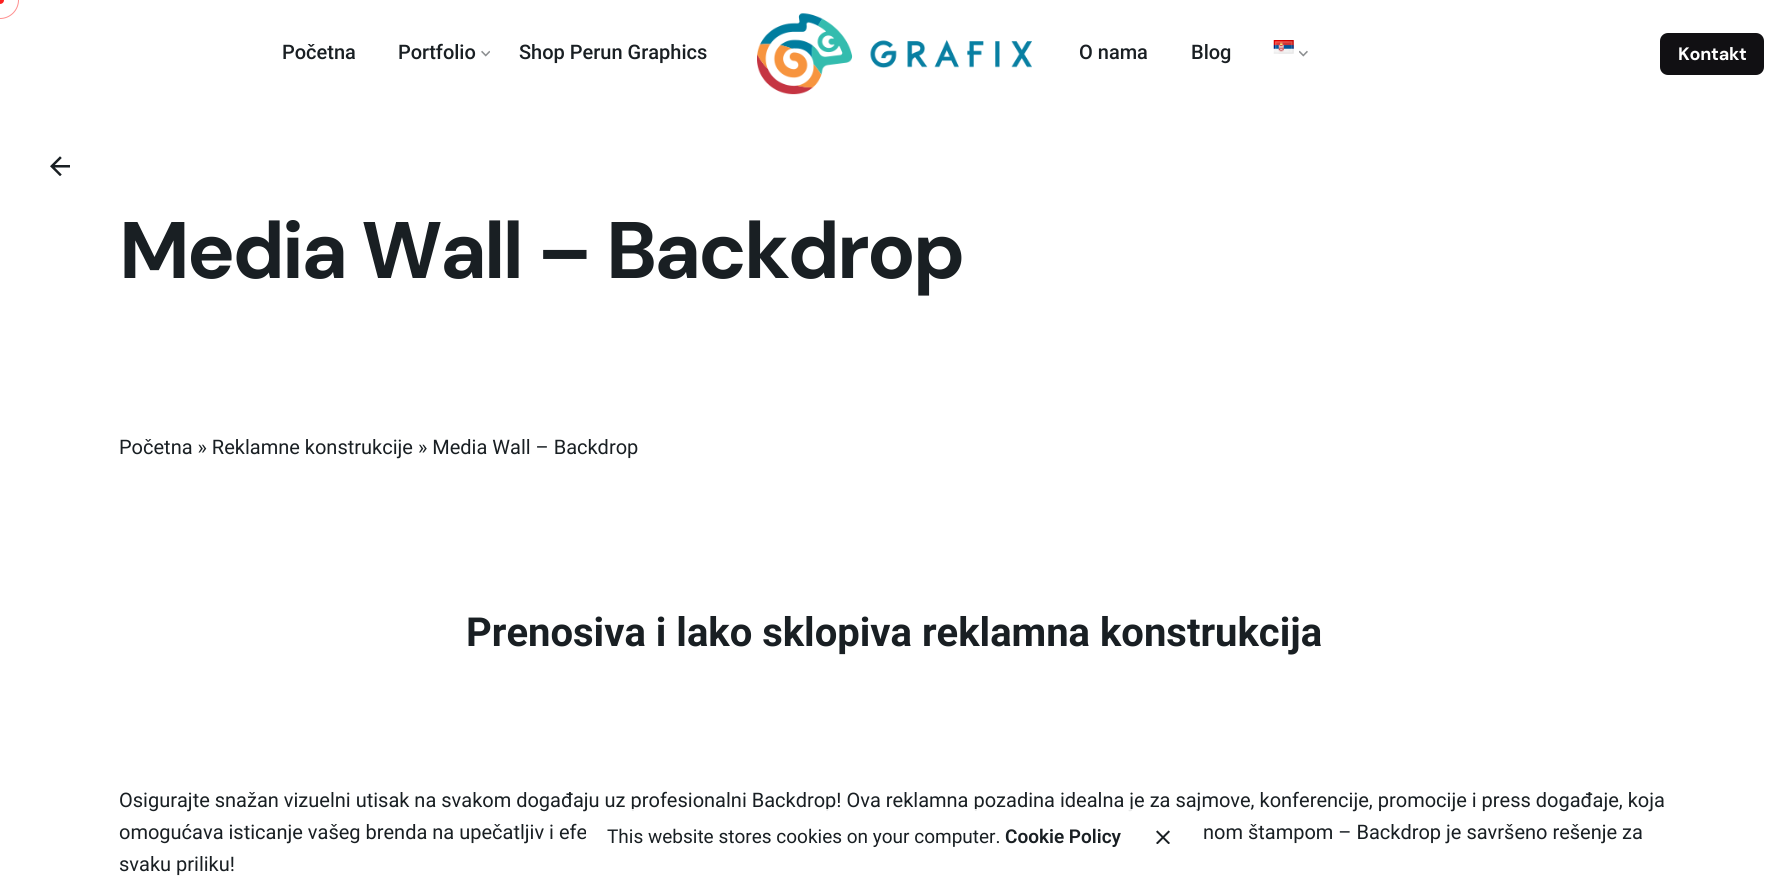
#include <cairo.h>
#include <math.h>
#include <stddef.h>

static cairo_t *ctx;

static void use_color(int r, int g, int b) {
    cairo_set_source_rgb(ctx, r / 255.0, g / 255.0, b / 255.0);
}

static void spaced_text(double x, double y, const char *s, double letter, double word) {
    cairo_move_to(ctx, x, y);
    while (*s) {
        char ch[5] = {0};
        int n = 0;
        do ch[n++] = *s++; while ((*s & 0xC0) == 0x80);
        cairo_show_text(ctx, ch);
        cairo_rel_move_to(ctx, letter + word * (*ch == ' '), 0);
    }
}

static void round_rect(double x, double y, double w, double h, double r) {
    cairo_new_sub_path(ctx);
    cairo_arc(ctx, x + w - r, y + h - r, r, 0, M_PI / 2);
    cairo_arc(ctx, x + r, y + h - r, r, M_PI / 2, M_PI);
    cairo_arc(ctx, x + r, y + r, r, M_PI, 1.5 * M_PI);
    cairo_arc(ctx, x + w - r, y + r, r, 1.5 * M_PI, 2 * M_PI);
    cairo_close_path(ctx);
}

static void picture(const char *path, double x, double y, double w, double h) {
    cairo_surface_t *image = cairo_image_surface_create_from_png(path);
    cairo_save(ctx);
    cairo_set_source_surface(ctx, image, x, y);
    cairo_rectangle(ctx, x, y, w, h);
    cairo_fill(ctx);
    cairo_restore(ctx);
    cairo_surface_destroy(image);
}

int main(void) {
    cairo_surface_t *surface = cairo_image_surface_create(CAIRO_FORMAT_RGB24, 1788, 890);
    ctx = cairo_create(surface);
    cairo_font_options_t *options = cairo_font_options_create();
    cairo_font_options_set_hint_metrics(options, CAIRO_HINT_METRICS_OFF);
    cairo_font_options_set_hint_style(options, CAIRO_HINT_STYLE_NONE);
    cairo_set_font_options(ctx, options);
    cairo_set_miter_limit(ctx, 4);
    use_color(255, 255, 255);
    cairo_paint(ctx);
    cairo_arc(ctx, 0, 0, 18.5, 0, 2 * M_PI);
    use_color(254, 144, 144);
    cairo_set_line_width(ctx, 1);
    cairo_stroke(ctx);
    use_color(252, 33, 33);
    cairo_arc(ctx, 0, 0, 4, 0, 2 * M_PI);
    cairo_fill(ctx);
    picture("img1.png", 757, 13, 275, 82);
    cairo_select_font_face(ctx, "Roboto Medium", CAIRO_FONT_SLANT_NORMAL, CAIRO_FONT_WEIGHT_NORMAL);
    cairo_set_font_size(ctx, 20);
    use_color(25, 31, 35);
    cairo_move_to(ctx, 282, 59);
    cairo_show_text(ctx, "Početna");
    cairo_move_to(ctx, 398, 59);
    cairo_show_text(ctx, "Portfolio");
    picture("img2.png", 481, 50, 9, 7);
    cairo_move_to(ctx, 519, 59);
    cairo_show_text(ctx, "Shop Perun Graphics");
    cairo_move_to(ctx, 1079, 59);
    cairo_show_text(ctx, "O nama");
    cairo_move_to(ctx, 1191, 59);
    cairo_show_text(ctx, "Blog");
    picture("img3.png", 1273, 40, 21, 14);
    picture("img4.png", 1299, 50, 9, 7);
    use_color(17, 16, 19);
    round_rect(1660, 33, 104, 42, 8);
    cairo_fill(ctx);
    cairo_select_font_face(ctx, "DM Sans", CAIRO_FONT_SLANT_NORMAL, CAIRO_FONT_WEIGHT_BOLD);
    cairo_set_font_size(ctx, 18);
    use_color(255, 255, 255);
    spaced_text(1678, 60, "Kontakt", -0.25, 0);
    picture("img5.png", 50, 156, 20, 20);
    cairo_set_font_size(ctx, 80);
    use_color(25, 31, 35);
    spaced_text(119, 278, "Media Wall – Backdrop", -2.8, 0);
    cairo_select_font_face(ctx, "Roboto", CAIRO_FONT_SLANT_NORMAL, CAIRO_FONT_WEIGHT_NORMAL);
    cairo_set_font_size(ctx, 20);
    cairo_move_to(ctx, 119, 454);
    cairo_show_text(ctx, "Početna » Reklamne konstrukcije » Media Wall – Backdrop");
    cairo_select_font_face(ctx, "Roboto", CAIRO_FONT_SLANT_NORMAL, CAIRO_FONT_WEIGHT_BOLD);
    cairo_set_font_size(ctx, 40);
    cairo_move_to(ctx, 466, 646);
    cairo_show_text(ctx, "Prenosiva i lako sklopiva reklamna konstrukcija");
    cairo_select_font_face(ctx, "Roboto", CAIRO_FONT_SLANT_NORMAL, CAIRO_FONT_WEIGHT_NORMAL);
    cairo_set_font_size(ctx, 20);
    cairo_move_to(ctx, 119, 807);
    cairo_show_text(ctx, "Osigurajte snažan vizuelni utisak na svakom događaju uz profesionalni Backdrop! Ova reklamna pozadina idealna je za sajmove, konferencije, promocije i press događaje, koja");
    cairo_move_to(ctx, 119, 839);
    cairo_show_text(ctx, "omogućava isticanje vašeg brenda na upečatljiv i efe");
    cairo_move_to(ctx, 1203, 839);
    cairo_show_text(ctx, "nom štampom – Backdrop je savršeno rešenje za");
    cairo_move_to(ctx, 119, 871);
    cairo_show_text(ctx, "svaku priliku!");
    cairo_set_source_rgba(ctx, 1, 1, 1, 0.9);
    round_rect(588, 809, 613, 56, 8);
    cairo_fill(ctx);
    cairo_set_font_size(ctx, 19);
    use_color(25, 31, 35);
    cairo_move_to(ctx, 607, 843);
    cairo_show_text(ctx, "This website stores cookies on your computer.");
    cairo_select_font_face(ctx, "Roboto SemiBold", CAIRO_FONT_SLANT_NORMAL, CAIRO_FONT_WEIGHT_NORMAL);
    cairo_move_to(ctx, 1005, 843);
    cairo_show_text(ctx, "Cookie Policy");
    picture("img6.png", 1156, 830, 14, 14);
    cairo_surface_write_to_png(surface, "result.png");
    cairo_font_options_destroy(options);
    cairo_destroy(ctx);
    cairo_surface_destroy(surface);
    return 0;
}
